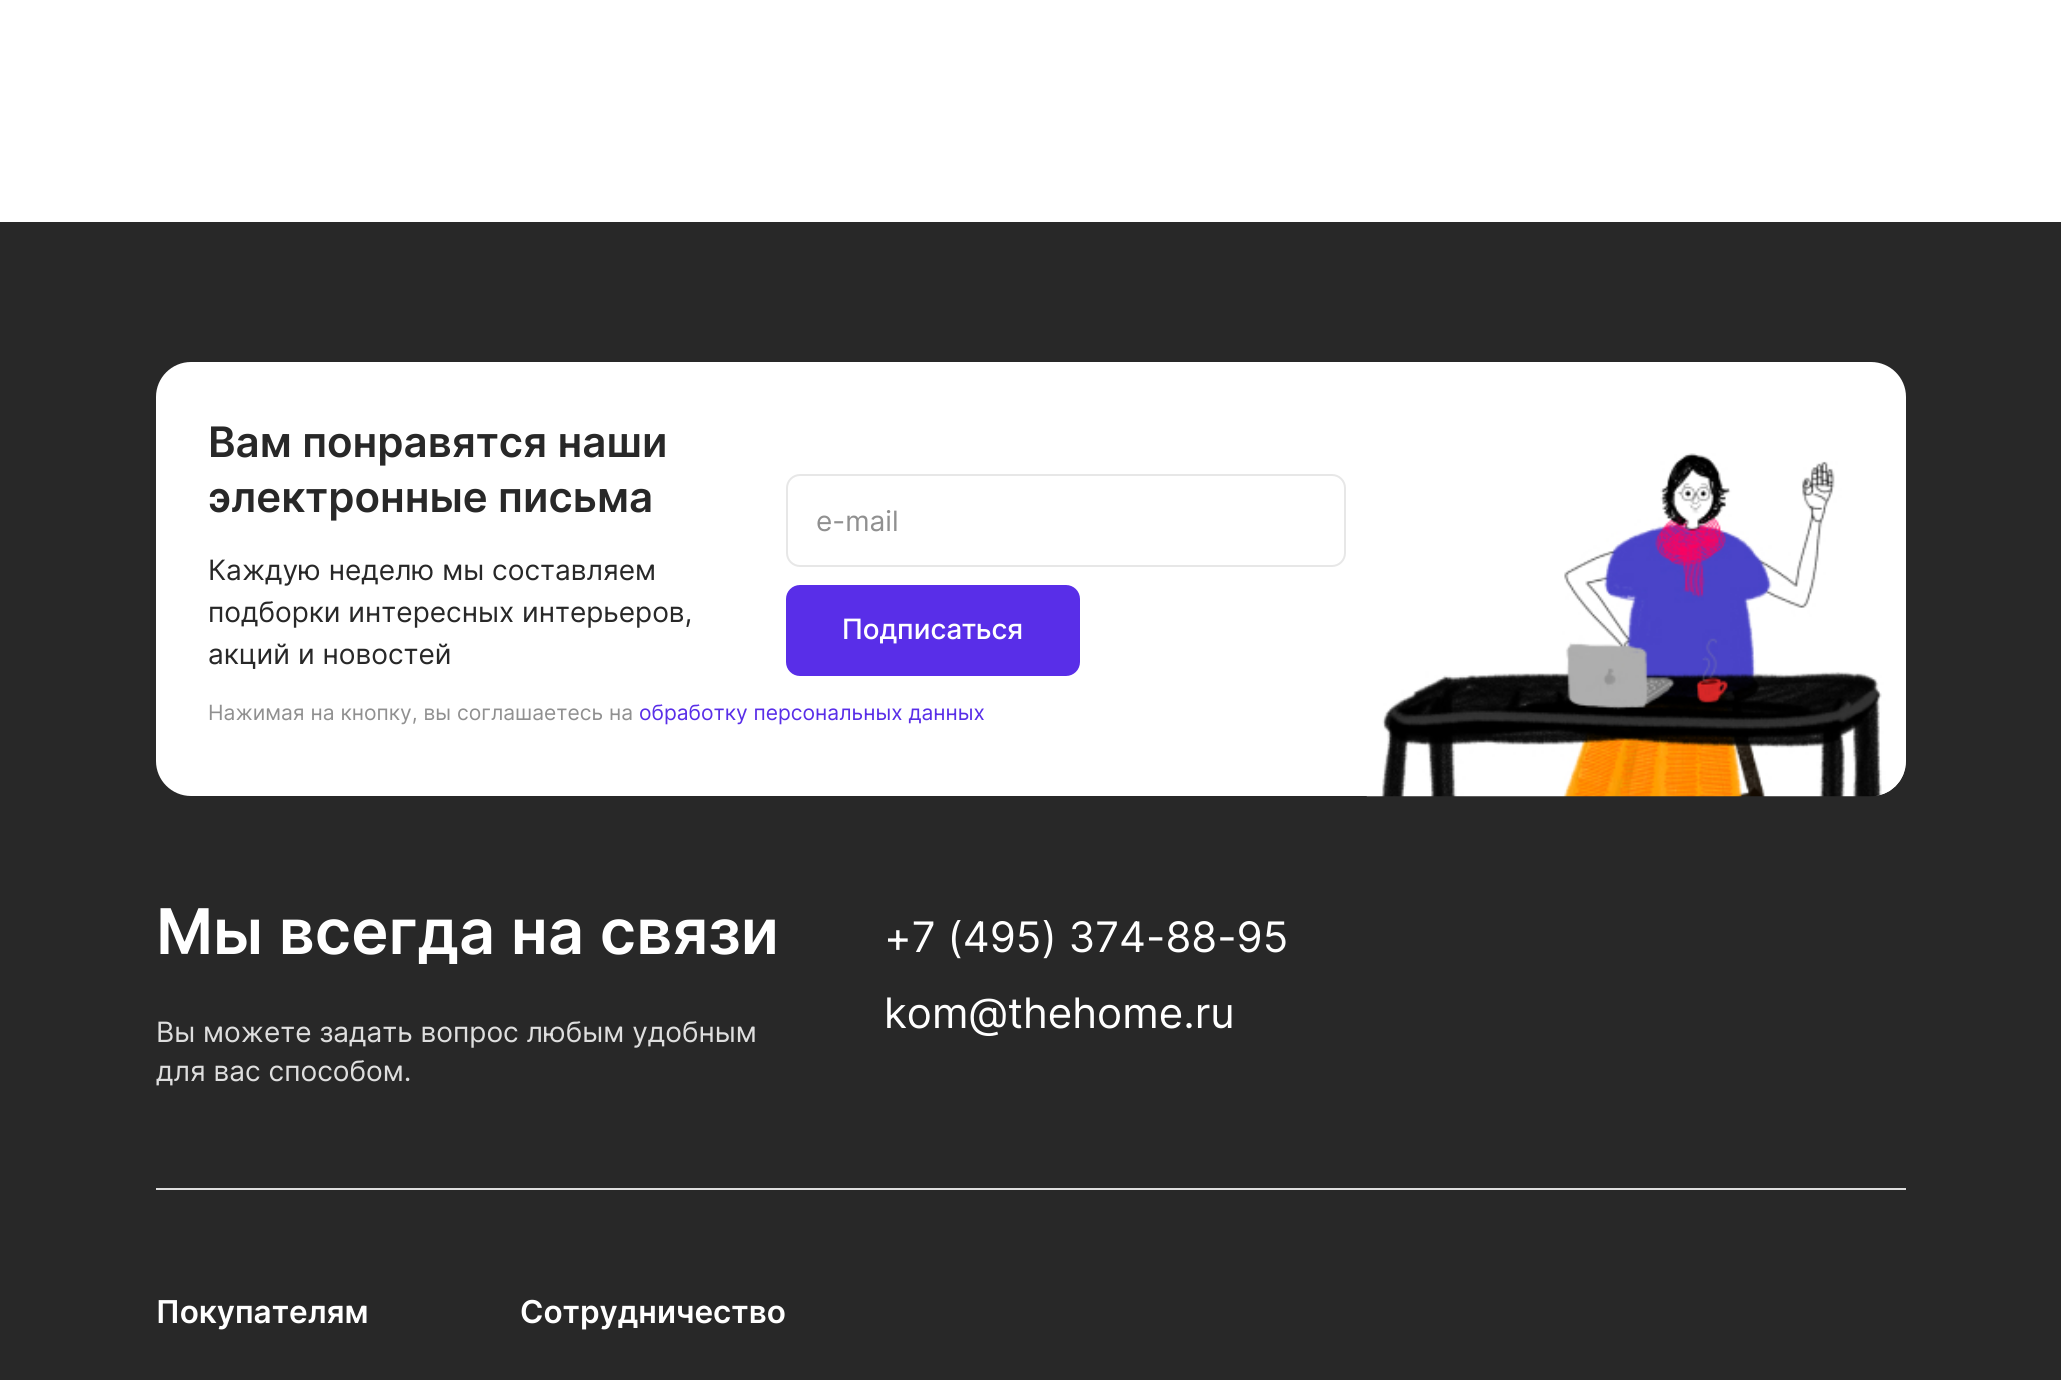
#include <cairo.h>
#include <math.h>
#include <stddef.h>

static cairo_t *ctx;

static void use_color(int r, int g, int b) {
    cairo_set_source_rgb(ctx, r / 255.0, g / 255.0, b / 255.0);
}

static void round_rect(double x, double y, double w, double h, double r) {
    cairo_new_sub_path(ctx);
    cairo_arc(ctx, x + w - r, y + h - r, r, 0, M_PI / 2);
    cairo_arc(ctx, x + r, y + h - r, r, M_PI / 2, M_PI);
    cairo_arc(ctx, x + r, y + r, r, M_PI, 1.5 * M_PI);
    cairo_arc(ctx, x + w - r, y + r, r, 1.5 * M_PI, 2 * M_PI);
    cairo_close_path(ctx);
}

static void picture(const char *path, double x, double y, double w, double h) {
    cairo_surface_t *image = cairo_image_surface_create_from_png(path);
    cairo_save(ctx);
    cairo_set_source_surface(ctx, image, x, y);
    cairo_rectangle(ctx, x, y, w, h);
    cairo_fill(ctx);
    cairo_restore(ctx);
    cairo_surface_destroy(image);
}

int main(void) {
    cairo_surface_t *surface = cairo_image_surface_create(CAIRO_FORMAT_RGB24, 2061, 1380);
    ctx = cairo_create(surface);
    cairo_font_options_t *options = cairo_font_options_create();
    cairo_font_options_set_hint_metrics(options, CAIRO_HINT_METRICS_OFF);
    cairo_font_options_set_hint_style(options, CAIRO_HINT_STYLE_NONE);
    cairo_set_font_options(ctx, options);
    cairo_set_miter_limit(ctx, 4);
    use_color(255, 255, 255);
    cairo_paint(ctx);
    use_color(40, 40, 40);
    cairo_rectangle(ctx, 0, 222, 2061, 1158);
    cairo_fill(ctx);
    use_color(255, 255, 255);
    round_rect(156, 362, 1750, 434, 35);
    cairo_fill(ctx);
    cairo_select_font_face(ctx, "Inter SemiBold", CAIRO_FONT_SLANT_NORMAL, CAIRO_FONT_WEIGHT_NORMAL);
    cairo_set_font_size(ctx, 42);
    use_color(40, 40, 40);
    cairo_move_to(ctx, 208, 457);
    cairo_show_text(ctx, "Вам понравятся наши");
    cairo_move_to(ctx, 208, 512);
    cairo_show_text(ctx, "электронные письма");
    cairo_select_font_face(ctx, "Inter", CAIRO_FONT_SLANT_NORMAL, CAIRO_FONT_WEIGHT_NORMAL);
    cairo_set_font_size(ctx, 28);
    cairo_move_to(ctx, 208, 580);
    cairo_show_text(ctx, "Каждую неделю мы составляем");
    cairo_move_to(ctx, 208, 622);
    cairo_show_text(ctx, "подборки интересных интерьеров,");
    cairo_move_to(ctx, 208, 664);
    cairo_show_text(ctx, "акций и новостей");
    round_rect(787, 475, 558, 91, 13);
    use_color(231, 231, 231);
    cairo_stroke(ctx);
    use_color(144, 144, 144);
    cairo_move_to(ctx, 816, 531);
    cairo_show_text(ctx, "e-mail");
    use_color(89, 46, 232);
    round_rect(786, 585, 294, 91, 14);
    cairo_fill(ctx);
    cairo_select_font_face(ctx, "Inter Medium", CAIRO_FONT_SLANT_NORMAL, CAIRO_FONT_WEIGHT_NORMAL);
    use_color(255, 255, 255);
    cairo_move_to(ctx, 842, 639);
    cairo_show_text(ctx, "Подписаться");
    picture("img1.png", 1366, 453, 540, 344);
    cairo_select_font_face(ctx, "Inter", CAIRO_FONT_SLANT_NORMAL, CAIRO_FONT_WEIGHT_NORMAL);
    cairo_set_font_size(ctx, 21);
    use_color(144, 144, 144);
    cairo_move_to(ctx, 208, 720);
    cairo_show_text(ctx, "Нажимая на кнопку, вы соглашаетесь на");
    use_color(89, 46, 232);
    cairo_move_to(ctx, 639, 720);
    cairo_show_text(ctx, "обработку персональных данных");
    use_color(222, 222, 222);
    cairo_rectangle(ctx, 156, 1188, 1750, 2);
    cairo_fill(ctx);
    cairo_select_font_face(ctx, "Inter SemiBold", CAIRO_FONT_SLANT_NORMAL, CAIRO_FONT_WEIGHT_NORMAL);
    cairo_set_font_size(ctx, 63);
    use_color(255, 255, 255);
    cairo_move_to(ctx, 156, 954);
    cairo_show_text(ctx, "Мы всегда на связи");
    cairo_select_font_face(ctx, "Inter", CAIRO_FONT_SLANT_NORMAL, CAIRO_FONT_WEIGHT_NORMAL);
    cairo_set_font_size(ctx, 28);
    use_color(222, 222, 222);
    cairo_move_to(ctx, 156, 1042);
    cairo_show_text(ctx, "Вы можете задать вопрос любым удобным");
    cairo_move_to(ctx, 156, 1081);
    cairo_show_text(ctx, "для вас способом.");
    cairo_set_font_size(ctx, 42);
    use_color(255, 255, 255);
    cairo_move_to(ctx, 884, 952);
    cairo_show_text(ctx, "+7 (495) 374-88-95");
    cairo_move_to(ctx, 884, 1028);
    cairo_show_text(ctx, "kom@thehome.ru");
    cairo_select_font_face(ctx, "Inter SemiBold", CAIRO_FONT_SLANT_NORMAL, CAIRO_FONT_WEIGHT_NORMAL);
    cairo_set_font_size(ctx, 31.5);
    cairo_move_to(ctx, 156, 1323);
    cairo_show_text(ctx, "Покупателям");
    cairo_move_to(ctx, 520, 1323);
    cairo_show_text(ctx, "Сотрудничество");
    cairo_surface_write_to_png(surface, "result.png");
    cairo_font_options_destroy(options);
    cairo_destroy(ctx);
    cairo_surface_destroy(surface);
    return 0;
}
